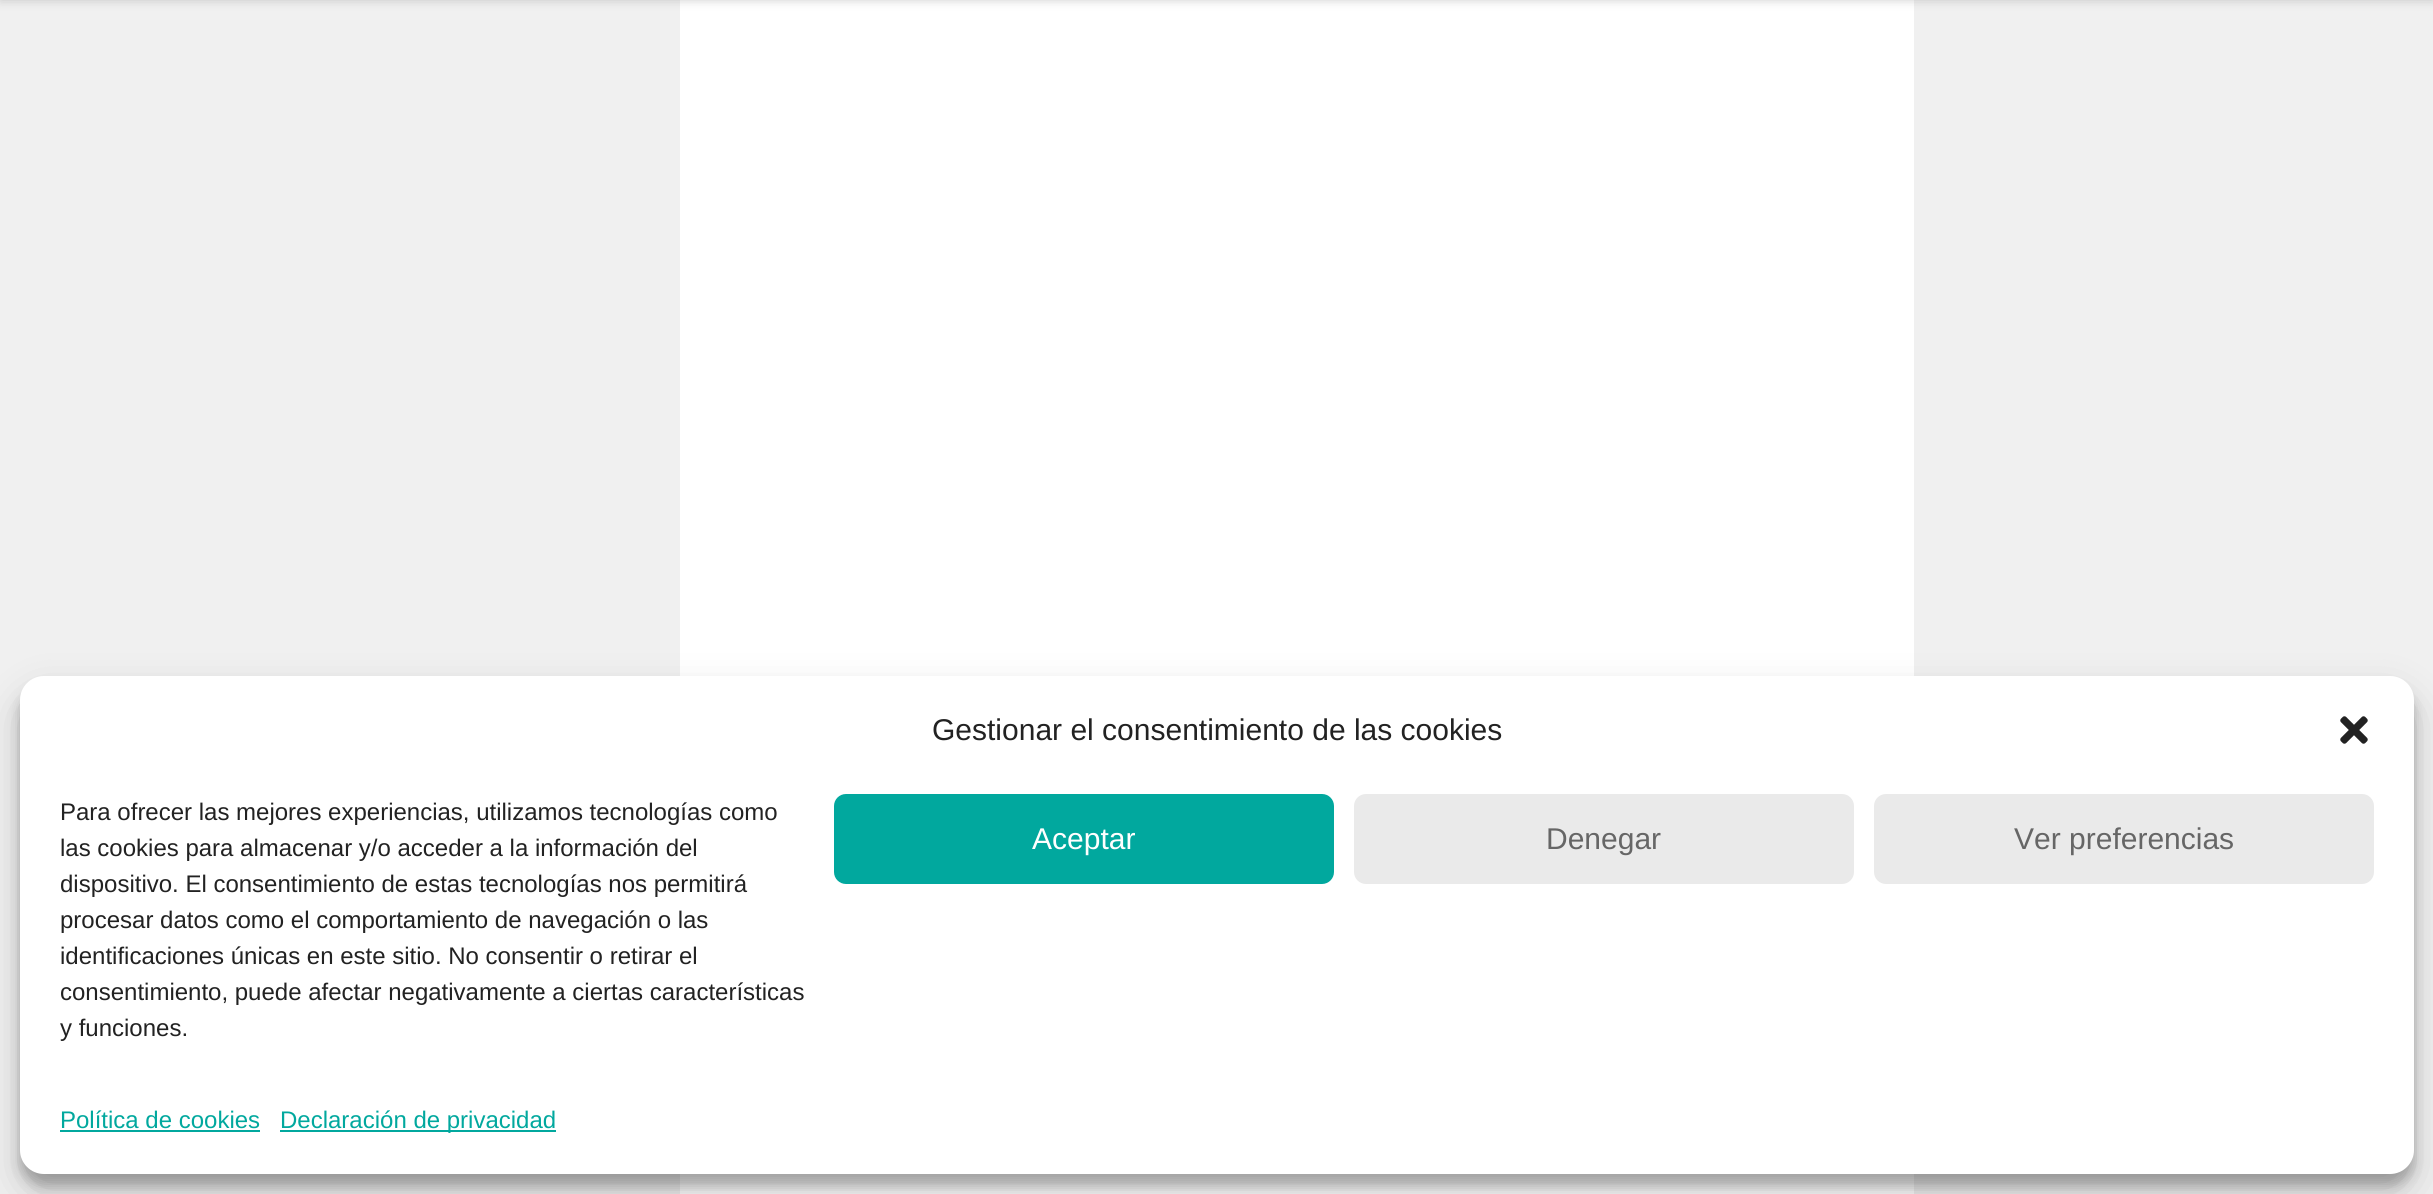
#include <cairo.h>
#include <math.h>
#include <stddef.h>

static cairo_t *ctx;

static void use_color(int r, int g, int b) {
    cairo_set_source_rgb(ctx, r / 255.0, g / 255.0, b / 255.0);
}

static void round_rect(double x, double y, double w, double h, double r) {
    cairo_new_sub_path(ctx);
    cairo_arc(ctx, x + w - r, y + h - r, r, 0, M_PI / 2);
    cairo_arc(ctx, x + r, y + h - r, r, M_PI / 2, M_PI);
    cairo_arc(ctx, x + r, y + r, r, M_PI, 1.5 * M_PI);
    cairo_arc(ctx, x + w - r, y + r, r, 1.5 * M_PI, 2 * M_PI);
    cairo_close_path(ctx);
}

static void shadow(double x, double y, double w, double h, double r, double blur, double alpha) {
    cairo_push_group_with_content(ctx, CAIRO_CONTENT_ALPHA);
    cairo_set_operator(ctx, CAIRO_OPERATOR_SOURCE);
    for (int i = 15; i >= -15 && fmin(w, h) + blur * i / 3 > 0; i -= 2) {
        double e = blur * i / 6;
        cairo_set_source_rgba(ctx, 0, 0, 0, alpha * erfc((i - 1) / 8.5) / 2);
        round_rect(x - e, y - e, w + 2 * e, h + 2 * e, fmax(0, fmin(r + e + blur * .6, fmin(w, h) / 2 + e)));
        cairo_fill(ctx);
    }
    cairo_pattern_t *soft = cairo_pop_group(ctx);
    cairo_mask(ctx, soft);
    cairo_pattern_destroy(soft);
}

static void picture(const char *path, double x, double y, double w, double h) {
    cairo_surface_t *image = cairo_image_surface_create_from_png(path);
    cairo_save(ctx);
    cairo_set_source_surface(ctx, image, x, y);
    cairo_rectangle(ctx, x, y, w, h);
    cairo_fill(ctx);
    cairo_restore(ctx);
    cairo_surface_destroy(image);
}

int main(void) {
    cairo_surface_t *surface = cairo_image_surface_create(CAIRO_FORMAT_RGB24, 2433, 1194);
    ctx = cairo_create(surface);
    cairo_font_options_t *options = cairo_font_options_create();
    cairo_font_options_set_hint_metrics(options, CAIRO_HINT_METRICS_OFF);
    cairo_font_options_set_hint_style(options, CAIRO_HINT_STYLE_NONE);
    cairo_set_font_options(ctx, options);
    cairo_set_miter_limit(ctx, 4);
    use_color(255, 255, 255);
    cairo_paint(ctx);
    use_color(240, 240, 240);
    cairo_rectangle(ctx, 0, 2, 680, 1192);
    cairo_fill(ctx);
    use_color(242, 242, 242);
    cairo_rectangle(ctx, 0, 0, 680, 2);
    cairo_fill(ctx);
    use_color(240, 240, 240);
    cairo_rectangle(ctx, 1914, 2, 519, 1192);
    cairo_fill(ctx);
    use_color(242, 242, 242);
    cairo_rectangle(ctx, 1914, 0, 519, 2);
    cairo_fill(ctx);
    use_color(0, 0, 0);
    shadow(0, -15, 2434, 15, 0, 5, 0.2);
    shadow(20, 688, 2394, 498, 24, 6, 0.23);
    shadow(20, 696, 2394, 498, 24, 20, 0.19);
    use_color(255, 255, 255);
    round_rect(20, 676, 2394, 498, 24);
    cairo_fill(ctx);
    cairo_select_font_face(ctx, "Liberation Sans", CAIRO_FONT_SLANT_NORMAL, CAIRO_FONT_WEIGHT_NORMAL);
    cairo_set_font_size(ctx, 30);
    use_color(34, 34, 34);
    cairo_move_to(ctx, 932, 740);
    cairo_show_text(ctx, "Gestionar el consentimiento de las cookies");
    picture("img1.png", 2340, 716, 28, 28);
    cairo_set_font_size(ctx, 24);
    cairo_move_to(ctx, 60, 820);
    cairo_show_text(ctx, "Para ofrecer las mejores experiencias, utilizamos tecnologías como");
    cairo_move_to(ctx, 60, 856);
    cairo_show_text(ctx, "las cookies para almacenar y/o acceder a la información del");
    cairo_move_to(ctx, 60, 892);
    cairo_show_text(ctx, "dispositivo. El consentimiento de estas tecnologías nos permitirá");
    cairo_move_to(ctx, 60, 928);
    cairo_show_text(ctx, "procesar datos como el comportamiento de navegación o las");
    cairo_move_to(ctx, 60, 964);
    cairo_show_text(ctx, "identificaciones únicas en este sitio. No consentir o retirar el");
    cairo_move_to(ctx, 60, 1000);
    cairo_show_text(ctx, "consentimiento, puede afectar negativamente a ciertas características");
    cairo_move_to(ctx, 60, 1036);
    cairo_show_text(ctx, "y funciones.");
    use_color(1, 168, 158);
    round_rect(835, 795, 498, 88, 11);
    cairo_fill_preserve(ctx);
    cairo_stroke(ctx);
    cairo_set_font_size(ctx, 30);
    use_color(255, 255, 255);
    cairo_move_to(ctx, 1032, 849);
    cairo_show_text(ctx, "Aceptar");
    use_color(234, 234, 234);
    round_rect(1355, 795, 498, 88, 11);
    cairo_fill_preserve(ctx);
    cairo_stroke(ctx);
    use_color(102, 102, 102);
    cairo_move_to(ctx, 1546, 849);
    cairo_show_text(ctx, "Denegar");
    use_color(234, 234, 234);
    round_rect(1875, 795, 498, 88, 11);
    cairo_fill_preserve(ctx);
    cairo_stroke(ctx);
    use_color(102, 102, 102);
    cairo_move_to(ctx, 2014, 849);
    cairo_show_text(ctx, "Ver preferencias");
    cairo_set_font_size(ctx, 24);
    use_color(1, 168, 158);
    cairo_move_to(ctx, 60, 1128);
    cairo_show_text(ctx, "Política de cookies");
    cairo_rectangle(ctx, 60, 1130, 200, 2);
    cairo_fill(ctx);
    cairo_rectangle(ctx, 280, 1130, 276, 2);
    cairo_fill(ctx);
    cairo_move_to(ctx, 280, 1128);
    cairo_show_text(ctx, "Declaración de privacidad");
    cairo_surface_write_to_png(surface, "result.png");
    cairo_font_options_destroy(options);
    cairo_destroy(ctx);
    cairo_surface_destroy(surface);
    return 0;
}
